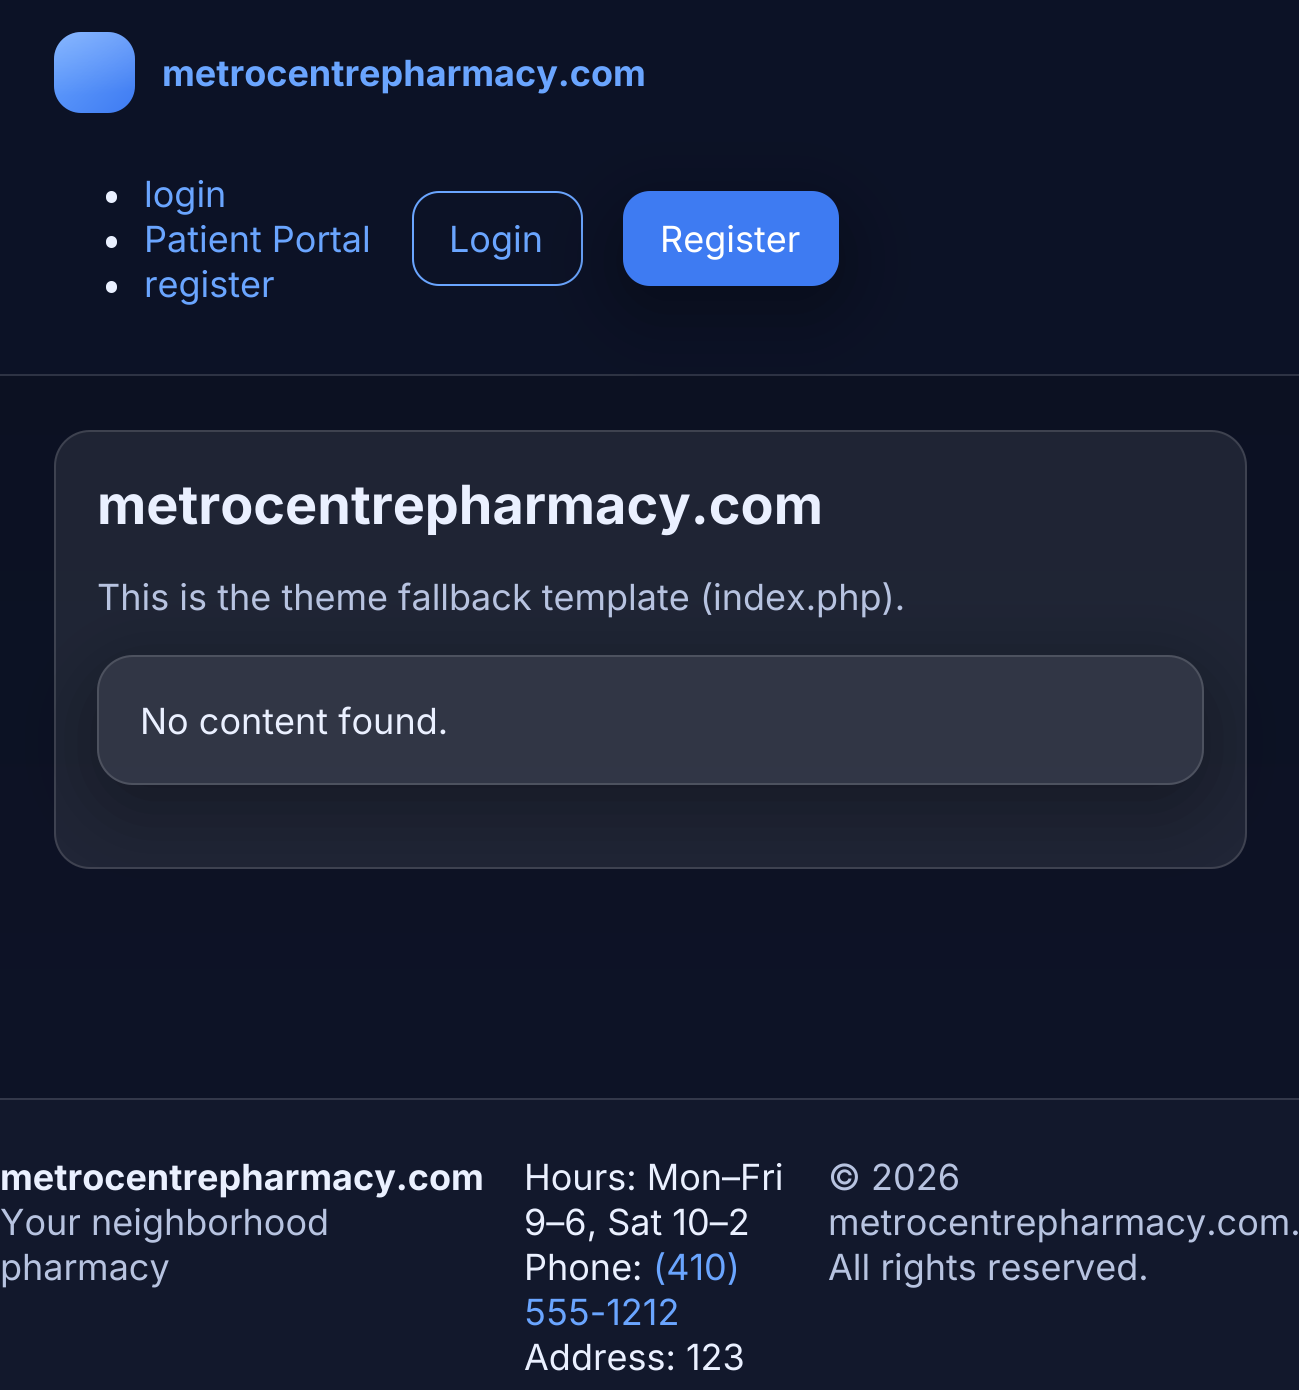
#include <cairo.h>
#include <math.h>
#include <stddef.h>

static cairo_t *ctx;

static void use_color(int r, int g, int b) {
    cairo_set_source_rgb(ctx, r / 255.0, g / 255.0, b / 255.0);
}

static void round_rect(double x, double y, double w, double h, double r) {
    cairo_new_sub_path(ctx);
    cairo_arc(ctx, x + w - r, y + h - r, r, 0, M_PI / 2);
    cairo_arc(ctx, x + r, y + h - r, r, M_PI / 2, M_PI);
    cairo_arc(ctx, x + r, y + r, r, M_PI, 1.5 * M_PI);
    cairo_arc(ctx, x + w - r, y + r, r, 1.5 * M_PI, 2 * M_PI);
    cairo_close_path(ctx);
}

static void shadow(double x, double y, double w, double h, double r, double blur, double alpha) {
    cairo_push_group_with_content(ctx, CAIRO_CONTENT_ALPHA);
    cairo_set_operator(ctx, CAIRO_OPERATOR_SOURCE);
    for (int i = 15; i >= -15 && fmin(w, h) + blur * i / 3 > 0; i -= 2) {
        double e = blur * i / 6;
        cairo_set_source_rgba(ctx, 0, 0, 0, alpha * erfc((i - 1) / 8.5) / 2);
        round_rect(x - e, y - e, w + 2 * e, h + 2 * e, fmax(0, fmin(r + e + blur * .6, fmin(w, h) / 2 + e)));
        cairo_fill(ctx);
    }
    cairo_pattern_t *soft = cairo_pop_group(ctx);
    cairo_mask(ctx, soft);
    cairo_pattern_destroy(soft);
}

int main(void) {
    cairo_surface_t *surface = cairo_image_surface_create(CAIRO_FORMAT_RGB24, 1299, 1390);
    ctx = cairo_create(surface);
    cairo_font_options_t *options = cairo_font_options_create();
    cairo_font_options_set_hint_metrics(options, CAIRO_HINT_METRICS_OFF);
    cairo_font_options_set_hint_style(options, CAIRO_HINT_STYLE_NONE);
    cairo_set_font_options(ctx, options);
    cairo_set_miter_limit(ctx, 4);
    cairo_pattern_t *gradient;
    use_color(255, 255, 255);
    cairo_paint(ctx);
    gradient = cairo_pattern_create_linear(650, 0, 650, 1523);
    cairo_pattern_add_color_stop_rgba(gradient, 0, 0.043, 0.063, 0.125, 1);
    cairo_pattern_add_color_stop_rgba(gradient, 1, 0.055, 0.078, 0.161, 1);
    cairo_set_source(ctx, gradient);
    cairo_pattern_destroy(gradient);
    cairo_rectangle(ctx, 0, 376, 1299, 722);
    cairo_fill(ctx);
    use_color(12, 18, 38);
    cairo_rectangle(ctx, 0, 0, 1299, 374);
    cairo_fill(ctx);
    use_color(46, 51, 68);
    cairo_rectangle(ctx, 0, 374, 1299, 2);
    cairo_fill(ctx);
    gradient = cairo_pattern_create_linear(54, 32, 135, 113);
    cairo_pattern_add_color_stop_rgba(gradient, 0, 0.416, 0.647, 1, 1);
    cairo_pattern_add_color_stop_rgba(gradient, 1, 0.243, 0.482, 0.949, 1);
    cairo_set_source(ctx, gradient);
    cairo_pattern_destroy(gradient);
    round_rect(54, 32, 81, 81, 27);
    cairo_fill(ctx);
    gradient = cairo_pattern_create_radial(0, 0, 0, 0, 0, 1);
    cairo_pattern_set_matrix(gradient, &(cairo_matrix_t){1.0 / 405, 0, 0, 1.0 / 135, -1.0 * 46 / 405, -1.0 * 15 / 135});
    cairo_pattern_add_color_stop_rgba(gradient, 0, 1, 1, 1, 0.25);
    cairo_pattern_add_color_stop_rgba(gradient, 0.6, 1, 1, 1, 0);
    cairo_set_source(ctx, gradient);
    cairo_pattern_destroy(gradient);
    round_rect(54, 32, 81, 81, 27);
    cairo_fill(ctx);
    cairo_select_font_face(ctx, "Inter", CAIRO_FONT_SLANT_NORMAL, CAIRO_FONT_WEIGHT_BOLD);
    cairo_set_font_size(ctx, 36);
    use_color(106, 165, 255);
    cairo_move_to(ctx, 162, 86);
    cairo_show_text(ctx, "metrocentrepharmacy.com");
    use_color(234, 240, 255);
    round_rect(106, 191, 11, 12, 5.5);
    cairo_fill(ctx);
    cairo_select_font_face(ctx, "Inter", CAIRO_FONT_SLANT_NORMAL, CAIRO_FONT_WEIGHT_NORMAL);
    use_color(106, 165, 255);
    cairo_move_to(ctx, 144, 207);
    cairo_show_text(ctx, "login");
    use_color(234, 240, 255);
    round_rect(106, 236, 11, 12, 5.5);
    cairo_fill(ctx);
    use_color(106, 165, 255);
    cairo_move_to(ctx, 144, 252);
    cairo_show_text(ctx, "Patient Portal");
    use_color(234, 240, 255);
    round_rect(106, 281, 11, 12, 5.5);
    cairo_fill(ctx);
    use_color(106, 165, 255);
    cairo_move_to(ctx, 144, 297);
    cairo_show_text(ctx, "register");
    round_rect(413, 192, 169, 93, 26);
    cairo_stroke(ctx);
    cairo_move_to(ctx, 449, 252);
    cairo_show_text(ctx, "Login");
    use_color(0, 0, 0);
    shadow(623, 214, 216, 94, 27, 39.5, 0.35);
    use_color(62, 123, 242);
    round_rect(623, 191, 216, 95, 27);
    cairo_fill(ctx);
    use_color(255, 255, 255);
    cairo_move_to(ctx, 660, 252);
    cairo_show_text(ctx, "Register");
    cairo_set_source_rgba(ctx, 1, 1, 1, 0.08);
    round_rect(54, 430, 1193, 439, 36);
    cairo_fill(ctx);
    round_rect(55, 431, 1191, 437, 35);
    cairo_set_source_rgba(ctx, 1, 1, 1, 0.14);
    cairo_stroke(ctx);
    cairo_select_font_face(ctx, "Inter", CAIRO_FONT_SLANT_NORMAL, CAIRO_FONT_WEIGHT_BOLD);
    cairo_set_font_size(ctx, 54);
    use_color(234, 240, 255);
    cairo_move_to(ctx, 97, 524);
    cairo_show_text(ctx, "metrocentrepharmacy.com");
    cairo_save(ctx);
    cairo_set_fill_rule(ctx, CAIRO_FILL_RULE_EVEN_ODD);
    cairo_new_path(ctx);
    cairo_move_to(ctx, 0, 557);
    cairo_line_to(ctx, 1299, 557);
    cairo_line_to(ctx, 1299, 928);
    cairo_line_to(ctx, 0, 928);
    cairo_close_path(ctx);
    cairo_move_to(ctx, 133, 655);
    cairo_line_to(ctx, 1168, 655);
    cairo_curve_to(ctx, 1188, 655, 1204, 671, 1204, 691);
    cairo_line_to(ctx, 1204, 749);
    cairo_curve_to(ctx, 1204, 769, 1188, 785, 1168, 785);
    cairo_line_to(ctx, 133, 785);
    cairo_curve_to(ctx, 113, 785, 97, 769, 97, 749);
    cairo_line_to(ctx, 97, 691);
    cairo_curve_to(ctx, 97, 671, 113, 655, 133, 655);
    cairo_close_path(ctx);
    cairo_clip(ctx);
    use_color(0, 0, 0);
    shadow(97, 677, 1107, 131, 36, 39.5, 0.35);
    cairo_restore(ctx);
    cairo_select_font_face(ctx, "Inter", CAIRO_FONT_SLANT_NORMAL, CAIRO_FONT_WEIGHT_NORMAL);
    cairo_set_font_size(ctx, 36);
    use_color(183, 195, 224);
    cairo_move_to(ctx, 97, 610);
    cairo_show_text(ctx, "This is the theme fallback template (index.php).");
    cairo_set_source_rgba(ctx, 1, 1, 1, 0.08);
    round_rect(97, 655, 1107, 130, 36);
    cairo_fill(ctx);
    round_rect(98, 656, 1105, 128, 35);
    cairo_set_source_rgba(ctx, 1, 1, 1, 0.14);
    cairo_stroke(ctx);
    use_color(234, 240, 255);
    cairo_move_to(ctx, 140, 734);
    cairo_show_text(ctx, "No content found.");
    use_color(18, 24, 44);
    cairo_rectangle(ctx, 0, 1100, 1299, 290);
    cairo_fill(ctx);
    use_color(51, 56, 74);
    cairo_rectangle(ctx, 0, 1098, 1299, 2);
    cairo_fill(ctx);
    cairo_select_font_face(ctx, "Inter", CAIRO_FONT_SLANT_NORMAL, CAIRO_FONT_WEIGHT_BOLD);
    use_color(234, 240, 255);
    cairo_move_to(ctx, 0, 1190);
    cairo_show_text(ctx, "metrocentrepharmacy.com");
    cairo_select_font_face(ctx, "Inter", CAIRO_FONT_SLANT_NORMAL, CAIRO_FONT_WEIGHT_NORMAL);
    use_color(183, 195, 224);
    cairo_move_to(ctx, 0, 1235);
    cairo_show_text(ctx, "Your neighborhood");
    cairo_move_to(ctx, 0, 1280);
    cairo_show_text(ctx, "pharmacy");
    use_color(234, 240, 255);
    cairo_move_to(ctx, 524, 1190);
    cairo_show_text(ctx, "Hours: Mon–Fri");
    cairo_move_to(ctx, 524, 1235);
    cairo_show_text(ctx, "9–6, Sat 10–2");
    cairo_move_to(ctx, 524, 1280);
    cairo_show_text(ctx, "Phone:");
    use_color(106, 165, 255);
    cairo_move_to(ctx, 653, 1280);
    cairo_show_text(ctx, "(410)");
    cairo_move_to(ctx, 524, 1325);
    cairo_show_text(ctx, "555-1212");
    use_color(234, 240, 255);
    cairo_move_to(ctx, 524, 1370);
    cairo_show_text(ctx, "Address: 123");
    use_color(183, 195, 224);
    cairo_move_to(ctx, 828, 1190);
    cairo_show_text(ctx, "© 2026");
    cairo_move_to(ctx, 828, 1235);
    cairo_show_text(ctx, "metrocentrepharmacy.com.");
    cairo_move_to(ctx, 828, 1280);
    cairo_show_text(ctx, "All rights reserved.");
    cairo_surface_write_to_png(surface, "result.png");
    cairo_font_options_destroy(options);
    cairo_destroy(ctx);
    cairo_surface_destroy(surface);
    return 0;
}
